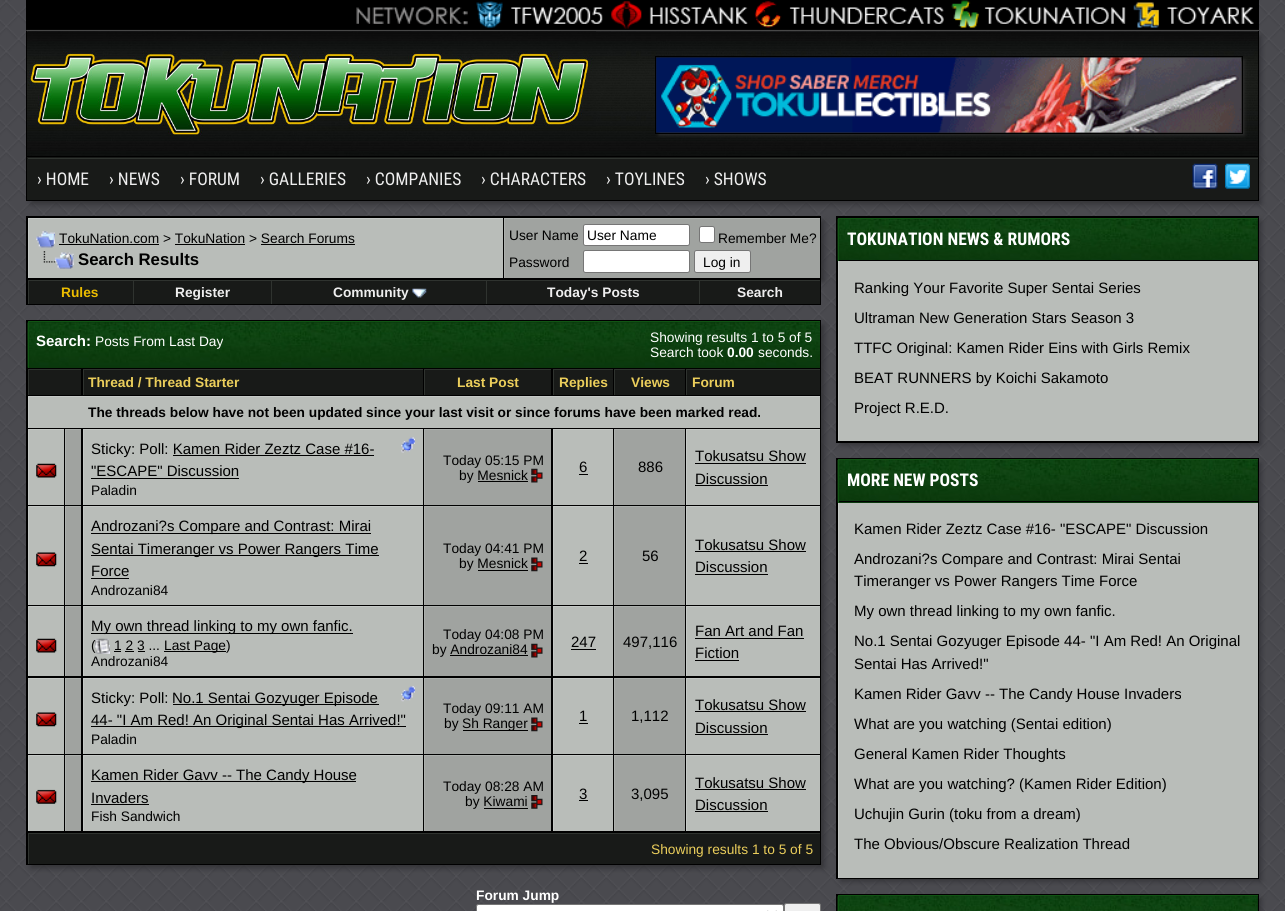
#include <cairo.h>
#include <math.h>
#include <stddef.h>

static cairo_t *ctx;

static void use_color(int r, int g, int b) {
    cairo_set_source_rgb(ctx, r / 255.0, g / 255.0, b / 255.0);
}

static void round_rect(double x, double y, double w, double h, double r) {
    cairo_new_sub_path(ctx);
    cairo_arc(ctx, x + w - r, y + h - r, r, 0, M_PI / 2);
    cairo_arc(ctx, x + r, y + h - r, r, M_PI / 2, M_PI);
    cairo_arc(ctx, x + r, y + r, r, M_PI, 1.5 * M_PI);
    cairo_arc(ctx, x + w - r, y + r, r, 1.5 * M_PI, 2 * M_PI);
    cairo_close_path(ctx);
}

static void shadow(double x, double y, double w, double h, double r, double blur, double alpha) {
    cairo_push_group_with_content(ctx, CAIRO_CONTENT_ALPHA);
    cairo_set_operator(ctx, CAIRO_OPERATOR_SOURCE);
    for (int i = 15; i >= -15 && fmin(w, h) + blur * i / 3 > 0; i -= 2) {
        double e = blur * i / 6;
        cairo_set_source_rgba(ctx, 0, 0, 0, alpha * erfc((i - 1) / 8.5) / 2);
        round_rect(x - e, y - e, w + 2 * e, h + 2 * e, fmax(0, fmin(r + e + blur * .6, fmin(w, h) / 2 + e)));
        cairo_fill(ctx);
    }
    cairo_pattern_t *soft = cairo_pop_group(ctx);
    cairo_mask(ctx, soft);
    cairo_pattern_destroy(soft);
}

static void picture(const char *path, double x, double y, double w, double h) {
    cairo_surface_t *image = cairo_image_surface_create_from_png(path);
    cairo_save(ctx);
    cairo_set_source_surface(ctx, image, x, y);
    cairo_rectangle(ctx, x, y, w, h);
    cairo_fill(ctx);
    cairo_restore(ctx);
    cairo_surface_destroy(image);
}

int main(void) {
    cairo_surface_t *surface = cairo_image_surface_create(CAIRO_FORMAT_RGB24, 1285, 911);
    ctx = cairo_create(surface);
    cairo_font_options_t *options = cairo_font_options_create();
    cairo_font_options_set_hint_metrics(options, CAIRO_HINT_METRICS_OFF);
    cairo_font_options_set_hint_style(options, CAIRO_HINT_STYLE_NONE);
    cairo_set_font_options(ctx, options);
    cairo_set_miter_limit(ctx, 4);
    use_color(255, 255, 255);
    cairo_paint(ctx);
    picture("img1.png", 0, 0, 1285, 911);
    use_color(0, 0, 0);
    cairo_rectangle(ctx, 26, 0, 1233, 31);
    cairo_fill(ctx);
    picture("img2.png", 26, 29, 1233, 2);
    picture("img3.png", 356, 0, 903, 31);
    picture("img4.png", 466, 1, 137, 27);
    picture("img5.png", 602, 1, 146, 28);
    picture("img6.png", 747, 1, 197, 27);
    use_color(50, 50, 54);
    shadow(31, 36, 1230, 123, 0, 3, 1);
    picture("img7.png", 27, 31, 1231, 125);
    use_color(0, 0, 0);
    cairo_rectangle(ctx, 1258, 31, 1, 125);
    cairo_fill(ctx);
    cairo_rectangle(ctx, 26, 31, 1, 125);
    cairo_fill(ctx);
    picture("img8.png", 28, 31, 568, 105);
    use_color(51, 51, 51);
    shadow(659, 60, 585, 75, 0, 2, 1);
    cairo_rectangle(ctx, 655.5, 56.5, 587, 77);
    use_color(0, 0, 0);
    cairo_set_line_width(ctx, 1);
    cairo_stroke(ctx);
    picture("img9.png", 656, 57, 586, 76);
    use_color(50, 50, 54);
    shadow(31, 161, 1230, 43, 0, 3, 1);
    use_color(24, 26, 24);
    cairo_rectangle(ctx, 27, 157, 1231, 43);
    cairo_fill(ctx);
    use_color(47, 51, 47);
    cairo_rectangle(ctx, 28, 158, 1230, 1);
    cairo_fill(ctx);
    cairo_rectangle(ctx, 26.5, 156.5, 1232, 44);
    use_color(0, 0, 0);
    cairo_stroke(ctx);
    cairo_select_font_face(ctx, "Roboto Condensed", CAIRO_FONT_SLANT_NORMAL, CAIRO_FONT_WEIGHT_NORMAL);
    cairo_set_font_size(ctx, 17.5);
    use_color(238, 238, 238);
    cairo_move_to(ctx, 37, 185);
    cairo_show_text(ctx, "› HOME");
    cairo_move_to(ctx, 109, 185);
    cairo_show_text(ctx, "› NEWS");
    cairo_move_to(ctx, 180, 185);
    cairo_show_text(ctx, "› FORUM");
    cairo_move_to(ctx, 260, 185);
    cairo_show_text(ctx, "› GALLERIES");
    cairo_move_to(ctx, 366, 185);
    cairo_show_text(ctx, "› COMPANIES");
    cairo_move_to(ctx, 481, 185);
    cairo_show_text(ctx, "› CHARACTERS");
    cairo_move_to(ctx, 606, 185);
    cairo_show_text(ctx, "› TOYLINES");
    cairo_move_to(ctx, 705, 185);
    cairo_show_text(ctx, "› SHOWS");
    picture("img10.png", 1192, 163, 26, 26);
    picture("img11.png", 1225, 163, 25, 26);
    use_color(50, 50, 54);
    shadow(31, 221, 793, 60, 0, 3, 1);
    use_color(0, 0, 0);
    cairo_rectangle(ctx, 26, 216, 795, 89);
    cairo_fill(ctx);
    use_color(185, 189, 185);
    cairo_rectangle(ctx, 29, 219, 474, 59);
    cairo_fill(ctx);
    use_color(197, 201, 198);
    cairo_rectangle(ctx, 28, 218, 475, 1);
    cairo_fill(ctx);
    cairo_rectangle(ctx, 28, 218, 1, 60);
    cairo_fill(ctx);
    picture("img12.png", 36, 231, 19, 17);
    cairo_select_font_face(ctx, "Liberation Sans", CAIRO_FONT_SLANT_NORMAL, CAIRO_FONT_WEIGHT_NORMAL);
    cairo_set_font_size(ctx, 13.75);
    use_color(0, 0, 0);
    cairo_move_to(ctx, 59, 243);
    cairo_show_text(ctx, "TokuNation.com > TokuNation");
    cairo_rectangle(ctx, 59, 244, 100, 1);
    cairo_fill(ctx);
    cairo_rectangle(ctx, 175, 244, 70, 1);
    cairo_fill(ctx);
    cairo_move_to(ctx, 249, 243);
    cairo_show_text(ctx, "> Search Forums");
    cairo_rectangle(ctx, 261, 244, 94, 1);
    cairo_fill(ctx);
    picture("img13.png", 43, 251, 31, 18);
    cairo_select_font_face(ctx, "Liberation Sans", CAIRO_FONT_SLANT_NORMAL, CAIRO_FONT_WEIGHT_BOLD);
    cairo_set_font_size(ctx, 16.75);
    cairo_move_to(ctx, 78, 265);
    cairo_show_text(ctx, "Search Results");
    use_color(160, 163, 160);
    cairo_rectangle(ctx, 505, 219, 315, 59);
    cairo_fill(ctx);
    use_color(172, 176, 173);
    cairo_rectangle(ctx, 504, 218, 316, 1);
    cairo_fill(ctx);
    cairo_rectangle(ctx, 504, 218, 1, 60);
    cairo_fill(ctx);
    cairo_select_font_face(ctx, "Liberation Sans", CAIRO_FONT_SLANT_NORMAL, CAIRO_FONT_WEIGHT_NORMAL);
    cairo_set_font_size(ctx, 13.75);
    use_color(0, 0, 0);
    cairo_move_to(ctx, 509, 240);
    cairo_show_text(ctx, "User Name");
    use_color(255, 255, 255);
    round_rect(583.5, 224.5, 106, 21, 2);
    cairo_fill_preserve(ctx);
    use_color(118, 118, 118);
    cairo_stroke(ctx);
    use_color(0, 0, 0);
    cairo_move_to(ctx, 587, 240);
    cairo_show_text(ctx, "User Name");
    use_color(255, 255, 255);
    round_rect(699.5, 226.5, 15, 16, 2);
    cairo_fill_preserve(ctx);
    use_color(118, 118, 118);
    cairo_stroke(ctx);
    use_color(0, 0, 0);
    cairo_move_to(ctx, 718, 243);
    cairo_show_text(ctx, "Remember Me?");
    cairo_move_to(ctx, 509, 267);
    cairo_show_text(ctx, "Password");
    use_color(255, 255, 255);
    round_rect(583.5, 250.5, 106, 22, 2);
    cairo_fill_preserve(ctx);
    use_color(118, 118, 118);
    cairo_stroke(ctx);
    use_color(239, 239, 239);
    round_rect(694.5, 250.5, 56, 22, 2);
    cairo_fill_preserve(ctx);
    use_color(118, 118, 118);
    cairo_stroke(ctx);
    use_color(0, 0, 0);
    cairo_move_to(ctx, 703, 267);
    cairo_show_text(ctx, "Log in");
    use_color(24, 26, 24);
    cairo_rectangle(ctx, 29, 281, 104, 23);
    cairo_fill(ctx);
    use_color(47, 51, 47);
    cairo_rectangle(ctx, 28, 280, 792, 1);
    cairo_fill(ctx);
    cairo_rectangle(ctx, 28, 280, 1, 24);
    cairo_fill(ctx);
    cairo_select_font_face(ctx, "Liberation Sans", CAIRO_FONT_SLANT_NORMAL, CAIRO_FONT_WEIGHT_BOLD);
    use_color(235, 188, 0);
    cairo_move_to(ctx, 61, 297);
    cairo_show_text(ctx, "Rules");
    use_color(24, 26, 24);
    cairo_rectangle(ctx, 134, 281, 137, 23);
    cairo_fill(ctx);
    use_color(47, 51, 47);
    cairo_rectangle(ctx, 133, 280, 1, 24);
    cairo_fill(ctx);
    use_color(238, 238, 238);
    cairo_move_to(ctx, 175, 297);
    cairo_show_text(ctx, "Register");
    use_color(24, 26, 24);
    cairo_rectangle(ctx, 272, 281, 214, 23);
    cairo_fill(ctx);
    use_color(47, 51, 47);
    cairo_rectangle(ctx, 271, 280, 1, 24);
    cairo_fill(ctx);
    use_color(238, 238, 238);
    cairo_move_to(ctx, 333, 297);
    cairo_show_text(ctx, "Community");
    picture("img14.png", 412, 288, 15, 10);
    use_color(24, 26, 24);
    cairo_rectangle(ctx, 487, 281, 212, 23);
    cairo_fill(ctx);
    use_color(47, 51, 47);
    cairo_rectangle(ctx, 486, 280, 1, 24);
    cairo_fill(ctx);
    use_color(238, 238, 238);
    cairo_move_to(ctx, 547, 297);
    cairo_show_text(ctx, "Today's Posts");
    use_color(24, 26, 24);
    cairo_rectangle(ctx, 700, 281, 120, 23);
    cairo_fill(ctx);
    use_color(47, 51, 47);
    cairo_rectangle(ctx, 699, 280, 1, 24);
    cairo_fill(ctx);
    use_color(238, 238, 238);
    cairo_move_to(ctx, 737, 297);
    cairo_show_text(ctx, "Search");
    use_color(50, 50, 54);
    shadow(31, 325, 793, 543, 0, 3, 1);
    use_color(0, 0, 0);
    cairo_rectangle(ctx, 26, 320, 795, 545);
    cairo_fill(ctx);
    use_color(11, 55, 13);
    cairo_rectangle(ctx, 29, 322, 791, 46);
    cairo_fill(ctx);
    picture("img15.png", 27, 322, 793, 46);
    use_color(17, 84, 20);
    cairo_rectangle(ctx, 28, 321, 792, 1);
    cairo_fill(ctx);
    cairo_rectangle(ctx, 28, 321, 1, 47);
    cairo_fill(ctx);
    cairo_set_font_size(ctx, 15);
    use_color(255, 255, 255);
    cairo_move_to(ctx, 36, 346);
    cairo_show_text(ctx, "Search:");
    cairo_select_font_face(ctx, "Liberation Sans", CAIRO_FONT_SLANT_NORMAL, CAIRO_FONT_WEIGHT_NORMAL);
    cairo_set_font_size(ctx, 13.75);
    cairo_move_to(ctx, 95, 346);
    cairo_show_text(ctx, "Posts From Last Day");
    cairo_move_to(ctx, 650, 342);
    cairo_show_text(ctx, "Showing results 1 to 5 of 5");
    cairo_move_to(ctx, 650, 357);
    cairo_show_text(ctx, "Search took");
    cairo_select_font_face(ctx, "Liberation Sans", CAIRO_FONT_SLANT_NORMAL, CAIRO_FONT_WEIGHT_BOLD);
    cairo_move_to(ctx, 727, 357);
    cairo_show_text(ctx, "0.00");
    cairo_select_font_face(ctx, "Liberation Sans", CAIRO_FONT_SLANT_NORMAL, CAIRO_FONT_WEIGHT_NORMAL);
    cairo_move_to(ctx, 758, 357);
    cairo_show_text(ctx, "seconds.");
    use_color(24, 26, 24);
    cairo_rectangle(ctx, 29, 370, 52, 25);
    cairo_fill(ctx);
    use_color(47, 51, 47);
    cairo_rectangle(ctx, 28, 369, 53, 1);
    cairo_fill(ctx);
    cairo_rectangle(ctx, 28, 369, 1, 26);
    cairo_fill(ctx);
    use_color(24, 26, 24);
    cairo_rectangle(ctx, 84, 370, 339, 25);
    cairo_fill(ctx);
    use_color(47, 51, 47);
    cairo_rectangle(ctx, 83, 369, 340, 1);
    cairo_fill(ctx);
    cairo_rectangle(ctx, 83, 369, 1, 26);
    cairo_fill(ctx);
    cairo_select_font_face(ctx, "Liberation Sans", CAIRO_FONT_SLANT_NORMAL, CAIRO_FONT_WEIGHT_BOLD);
    use_color(235, 206, 91);
    cairo_move_to(ctx, 88, 387);
    cairo_show_text(ctx, "Thread / Thread Starter");
    use_color(24, 26, 24);
    cairo_rectangle(ctx, 425, 370, 126, 25);
    cairo_fill(ctx);
    use_color(47, 51, 47);
    cairo_rectangle(ctx, 424, 369, 127, 1);
    cairo_fill(ctx);
    cairo_rectangle(ctx, 424, 369, 1, 26);
    cairo_fill(ctx);
    use_color(235, 206, 91);
    cairo_move_to(ctx, 457, 387);
    cairo_show_text(ctx, "Last Post");
    use_color(24, 26, 24);
    cairo_rectangle(ctx, 554, 370, 59, 25);
    cairo_fill(ctx);
    use_color(47, 51, 47);
    cairo_rectangle(ctx, 553, 369, 60, 1);
    cairo_fill(ctx);
    cairo_rectangle(ctx, 553, 369, 1, 26);
    cairo_fill(ctx);
    use_color(235, 206, 91);
    cairo_move_to(ctx, 559, 387);
    cairo_show_text(ctx, "Replies");
    use_color(24, 26, 24);
    cairo_rectangle(ctx, 615, 370, 70, 25);
    cairo_fill(ctx);
    use_color(47, 51, 47);
    cairo_rectangle(ctx, 614, 369, 71, 1);
    cairo_fill(ctx);
    cairo_rectangle(ctx, 614, 369, 1, 26);
    cairo_fill(ctx);
    use_color(235, 206, 91);
    cairo_move_to(ctx, 631, 387);
    cairo_show_text(ctx, "Views");
    use_color(24, 26, 24);
    cairo_rectangle(ctx, 687, 370, 133, 25);
    cairo_fill(ctx);
    use_color(47, 51, 47);
    cairo_rectangle(ctx, 686, 369, 134, 1);
    cairo_fill(ctx);
    cairo_rectangle(ctx, 686, 369, 1, 26);
    cairo_fill(ctx);
    use_color(235, 206, 91);
    cairo_move_to(ctx, 692, 387);
    cairo_show_text(ctx, "Forum");
    use_color(185, 189, 185);
    cairo_rectangle(ctx, 29, 397, 791, 31);
    cairo_fill(ctx);
    use_color(197, 201, 198);
    cairo_rectangle(ctx, 28, 396, 792, 1);
    cairo_fill(ctx);
    cairo_rectangle(ctx, 28, 396, 1, 32);
    cairo_fill(ctx);
    use_color(0, 0, 0);
    cairo_move_to(ctx, 88, 417);
    cairo_show_text(ctx, "The threads below have not been updated since your last visit or since forums have been marked read.");
    use_color(185, 189, 185);
    cairo_rectangle(ctx, 29, 430, 35, 75);
    cairo_fill(ctx);
    use_color(197, 201, 198);
    cairo_rectangle(ctx, 28, 429, 36, 1);
    cairo_fill(ctx);
    cairo_rectangle(ctx, 28, 429, 1, 76);
    cairo_fill(ctx);
    picture("img16.png", 36, 463, 21, 15);
    use_color(160, 163, 160);
    cairo_rectangle(ctx, 66, 430, 15, 75);
    cairo_fill(ctx);
    use_color(172, 176, 173);
    cairo_rectangle(ctx, 65, 429, 16, 1);
    cairo_fill(ctx);
    cairo_rectangle(ctx, 65, 429, 1, 76);
    cairo_fill(ctx);
    use_color(185, 189, 185);
    cairo_rectangle(ctx, 84, 430, 339, 75);
    cairo_fill(ctx);
    use_color(197, 201, 198);
    cairo_rectangle(ctx, 83, 429, 340, 1);
    cairo_fill(ctx);
    cairo_rectangle(ctx, 83, 429, 1, 76);
    cairo_fill(ctx);
    cairo_select_font_face(ctx, "Liberation Sans", CAIRO_FONT_SLANT_NORMAL, CAIRO_FONT_WEIGHT_NORMAL);
    cairo_set_font_size(ctx, 15);
    use_color(0, 0, 0);
    cairo_move_to(ctx, 91, 454);
    cairo_show_text(ctx, "Sticky: Poll: Kamen Rider Zeztz Case #16-");
    picture("img17.png", 401, 437, 14, 16);
    cairo_move_to(ctx, 91, 476);
    cairo_show_text(ctx, "\"ESCAPE\" Discussion");
    cairo_rectangle(ctx, 173, 455, 201, 1);
    cairo_fill(ctx);
    cairo_rectangle(ctx, 91, 478, 148, 1);
    cairo_fill(ctx);
    cairo_set_font_size(ctx, 13.75);
    cairo_move_to(ctx, 91, 495);
    cairo_show_text(ctx, "Paladin");
    use_color(160, 163, 160);
    cairo_rectangle(ctx, 425, 430, 126, 75);
    cairo_fill(ctx);
    use_color(172, 176, 173);
    cairo_rectangle(ctx, 424, 429, 127, 1);
    cairo_fill(ctx);
    cairo_rectangle(ctx, 424, 429, 1, 76);
    cairo_fill(ctx);
    use_color(0, 0, 0);
    cairo_move_to(ctx, 443, 465);
    cairo_show_text(ctx, "Today 05:15 PM");
    cairo_move_to(ctx, 459, 480);
    cairo_show_text(ctx, "by Mesnick");
    picture("img18.png", 531, 468, 12, 15);
    cairo_rectangle(ctx, 478, 481, 50, 1);
    cairo_fill(ctx);
    use_color(185, 189, 185);
    cairo_rectangle(ctx, 554, 430, 59, 75);
    cairo_fill(ctx);
    use_color(197, 201, 198);
    cairo_rectangle(ctx, 553, 429, 60, 1);
    cairo_fill(ctx);
    cairo_rectangle(ctx, 553, 429, 1, 76);
    cairo_fill(ctx);
    cairo_set_font_size(ctx, 15);
    use_color(0, 0, 0);
    cairo_move_to(ctx, 579, 472);
    cairo_show_text(ctx, "6");
    cairo_rectangle(ctx, 579, 474, 9, 1);
    cairo_fill(ctx);
    use_color(160, 163, 160);
    cairo_rectangle(ctx, 615, 430, 70, 75);
    cairo_fill(ctx);
    use_color(172, 176, 173);
    cairo_rectangle(ctx, 614, 429, 71, 1);
    cairo_fill(ctx);
    cairo_rectangle(ctx, 614, 429, 1, 76);
    cairo_fill(ctx);
    use_color(0, 0, 0);
    cairo_move_to(ctx, 638, 472);
    cairo_show_text(ctx, "886");
    use_color(185, 189, 185);
    cairo_rectangle(ctx, 687, 430, 133, 75);
    cairo_fill(ctx);
    use_color(197, 201, 198);
    cairo_rectangle(ctx, 686, 429, 134, 1);
    cairo_fill(ctx);
    cairo_rectangle(ctx, 686, 429, 1, 76);
    cairo_fill(ctx);
    use_color(0, 0, 0);
    cairo_move_to(ctx, 695, 461);
    cairo_show_text(ctx, "Tokusatsu Show");
    cairo_rectangle(ctx, 695, 463, 111, 1);
    cairo_fill(ctx);
    cairo_move_to(ctx, 695, 484);
    cairo_show_text(ctx, "Discussion");
    cairo_rectangle(ctx, 695, 485, 73, 1);
    cairo_fill(ctx);
    use_color(185, 189, 185);
    cairo_rectangle(ctx, 29, 507, 35, 98);
    cairo_fill(ctx);
    use_color(197, 201, 198);
    cairo_rectangle(ctx, 28, 506, 36, 1);
    cairo_fill(ctx);
    cairo_rectangle(ctx, 28, 506, 1, 99);
    cairo_fill(ctx);
    picture("img19.png", 36, 552, 21, 15);
    use_color(160, 163, 160);
    cairo_rectangle(ctx, 66, 507, 15, 98);
    cairo_fill(ctx);
    use_color(172, 176, 173);
    cairo_rectangle(ctx, 65, 506, 16, 1);
    cairo_fill(ctx);
    cairo_rectangle(ctx, 65, 506, 1, 99);
    cairo_fill(ctx);
    use_color(185, 189, 185);
    cairo_rectangle(ctx, 84, 507, 339, 98);
    cairo_fill(ctx);
    use_color(197, 201, 198);
    cairo_rectangle(ctx, 83, 506, 340, 1);
    cairo_fill(ctx);
    cairo_rectangle(ctx, 83, 506, 1, 99);
    cairo_fill(ctx);
    use_color(0, 0, 0);
    cairo_rectangle(ctx, 91, 533, 280, 1);
    cairo_fill(ctx);
    cairo_move_to(ctx, 91, 531);
    cairo_show_text(ctx, "Androzani?s Compare and Contrast: Mirai");
    cairo_rectangle(ctx, 91, 555, 288, 1);
    cairo_fill(ctx);
    cairo_move_to(ctx, 91, 554);
    cairo_show_text(ctx, "Sentai Timeranger vs Power Rangers Time");
    cairo_move_to(ctx, 91, 576);
    cairo_show_text(ctx, "Force");
    cairo_rectangle(ctx, 91, 578, 38, 1);
    cairo_fill(ctx);
    cairo_set_font_size(ctx, 13.75);
    cairo_move_to(ctx, 91, 595);
    cairo_show_text(ctx, "Androzani84");
    use_color(160, 163, 160);
    cairo_rectangle(ctx, 425, 507, 126, 98);
    cairo_fill(ctx);
    use_color(172, 176, 173);
    cairo_rectangle(ctx, 424, 506, 127, 1);
    cairo_fill(ctx);
    cairo_rectangle(ctx, 424, 506, 1, 99);
    cairo_fill(ctx);
    use_color(0, 0, 0);
    cairo_move_to(ctx, 443, 553);
    cairo_show_text(ctx, "Today 04:41 PM");
    cairo_move_to(ctx, 459, 568);
    cairo_show_text(ctx, "by Mesnick");
    picture("img20.png", 531, 557, 12, 15);
    cairo_rectangle(ctx, 478, 570, 50, 1);
    cairo_fill(ctx);
    use_color(185, 189, 185);
    cairo_rectangle(ctx, 554, 507, 59, 98);
    cairo_fill(ctx);
    use_color(197, 201, 198);
    cairo_rectangle(ctx, 553, 506, 60, 1);
    cairo_fill(ctx);
    cairo_rectangle(ctx, 553, 506, 1, 99);
    cairo_fill(ctx);
    cairo_set_font_size(ctx, 15);
    use_color(0, 0, 0);
    cairo_move_to(ctx, 579, 561);
    cairo_show_text(ctx, "2");
    cairo_rectangle(ctx, 579, 563, 9, 1);
    cairo_fill(ctx);
    use_color(160, 163, 160);
    cairo_rectangle(ctx, 615, 507, 70, 98);
    cairo_fill(ctx);
    use_color(172, 176, 173);
    cairo_rectangle(ctx, 614, 506, 71, 1);
    cairo_fill(ctx);
    cairo_rectangle(ctx, 614, 506, 1, 99);
    cairo_fill(ctx);
    use_color(0, 0, 0);
    cairo_move_to(ctx, 642, 561);
    cairo_show_text(ctx, "56");
    use_color(185, 189, 185);
    cairo_rectangle(ctx, 687, 507, 133, 98);
    cairo_fill(ctx);
    use_color(197, 201, 198);
    cairo_rectangle(ctx, 686, 506, 134, 1);
    cairo_fill(ctx);
    cairo_rectangle(ctx, 686, 506, 1, 99);
    cairo_fill(ctx);
    use_color(0, 0, 0);
    cairo_move_to(ctx, 695, 550);
    cairo_show_text(ctx, "Tokusatsu Show");
    cairo_rectangle(ctx, 695, 551, 111, 1);
    cairo_fill(ctx);
    cairo_move_to(ctx, 695, 572);
    cairo_show_text(ctx, "Discussion");
    cairo_rectangle(ctx, 695, 574, 73, 1);
    cairo_fill(ctx);
    use_color(185, 189, 185);
    cairo_rectangle(ctx, 29, 607, 35, 69);
    cairo_fill(ctx);
    use_color(197, 201, 198);
    cairo_rectangle(ctx, 28, 606, 36, 1);
    cairo_fill(ctx);
    cairo_rectangle(ctx, 28, 606, 1, 70);
    cairo_fill(ctx);
    picture("img16.png", 36, 638, 21, 15);
    use_color(160, 163, 160);
    cairo_rectangle(ctx, 66, 607, 15, 69);
    cairo_fill(ctx);
    use_color(172, 176, 173);
    cairo_rectangle(ctx, 65, 606, 16, 1);
    cairo_fill(ctx);
    cairo_rectangle(ctx, 65, 606, 1, 70);
    cairo_fill(ctx);
    use_color(185, 189, 185);
    cairo_rectangle(ctx, 84, 607, 339, 69);
    cairo_fill(ctx);
    use_color(197, 201, 198);
    cairo_rectangle(ctx, 83, 606, 340, 1);
    cairo_fill(ctx);
    cairo_rectangle(ctx, 83, 606, 1, 70);
    cairo_fill(ctx);
    use_color(0, 0, 0);
    cairo_rectangle(ctx, 91, 633, 262, 1);
    cairo_fill(ctx);
    cairo_move_to(ctx, 91, 631);
    cairo_show_text(ctx, "My own thread linking to my own fanfic.");
    cairo_set_font_size(ctx, 13.75);
    cairo_move_to(ctx, 91, 650);
    cairo_show_text(ctx, "(");
    picture("img21.png", 95, 638, 15, 16);
    cairo_move_to(ctx, 114, 650);
    cairo_show_text(ctx, "1 2 3 ...");
    cairo_rectangle(ctx, 114, 651, 7, 1);
    cairo_fill(ctx);
    cairo_rectangle(ctx, 125, 651, 9, 1);
    cairo_fill(ctx);
    cairo_rectangle(ctx, 138, 651, 7, 1);
    cairo_fill(ctx);
    cairo_rectangle(ctx, 164, 651, 62, 1);
    cairo_fill(ctx);
    cairo_move_to(ctx, 164, 650);
    cairo_show_text(ctx, "Last Page)");
    cairo_move_to(ctx, 91, 666);
    cairo_show_text(ctx, "Androzani84");
    use_color(160, 163, 160);
    cairo_rectangle(ctx, 425, 607, 126, 69);
    cairo_fill(ctx);
    use_color(172, 176, 173);
    cairo_rectangle(ctx, 424, 606, 127, 1);
    cairo_fill(ctx);
    cairo_rectangle(ctx, 424, 606, 1, 70);
    cairo_fill(ctx);
    use_color(0, 0, 0);
    cairo_move_to(ctx, 443, 639);
    cairo_show_text(ctx, "Today 04:08 PM");
    cairo_move_to(ctx, 432, 654);
    cairo_show_text(ctx, "by Androzani84");
    picture("img18.png", 531, 643, 12, 15);
    cairo_rectangle(ctx, 450, 655, 78, 1);
    cairo_fill(ctx);
    use_color(185, 189, 185);
    cairo_rectangle(ctx, 554, 607, 59, 69);
    cairo_fill(ctx);
    use_color(197, 201, 198);
    cairo_rectangle(ctx, 553, 606, 60, 1);
    cairo_fill(ctx);
    cairo_rectangle(ctx, 553, 606, 1, 70);
    cairo_fill(ctx);
    cairo_set_font_size(ctx, 15);
    use_color(0, 0, 0);
    cairo_move_to(ctx, 571, 647);
    cairo_show_text(ctx, "247");
    cairo_rectangle(ctx, 571, 649, 25, 1);
    cairo_fill(ctx);
    use_color(160, 163, 160);
    cairo_rectangle(ctx, 615, 607, 70, 69);
    cairo_fill(ctx);
    use_color(172, 176, 173);
    cairo_rectangle(ctx, 614, 606, 71, 1);
    cairo_fill(ctx);
    cairo_rectangle(ctx, 614, 606, 1, 70);
    cairo_fill(ctx);
    use_color(0, 0, 0);
    cairo_move_to(ctx, 623, 647);
    cairo_show_text(ctx, "497,116");
    use_color(185, 189, 185);
    cairo_rectangle(ctx, 687, 607, 133, 69);
    cairo_fill(ctx);
    use_color(197, 201, 198);
    cairo_rectangle(ctx, 686, 606, 134, 1);
    cairo_fill(ctx);
    cairo_rectangle(ctx, 686, 606, 1, 70);
    cairo_fill(ctx);
    use_color(0, 0, 0);
    cairo_move_to(ctx, 695, 636);
    cairo_show_text(ctx, "Fan Art and Fan");
    cairo_rectangle(ctx, 695, 638, 109, 1);
    cairo_fill(ctx);
    cairo_move_to(ctx, 695, 658);
    cairo_show_text(ctx, "Fiction");
    cairo_rectangle(ctx, 695, 660, 44, 1);
    cairo_fill(ctx);
    use_color(185, 189, 185);
    cairo_rectangle(ctx, 29, 679, 35, 75);
    cairo_fill(ctx);
    use_color(197, 201, 198);
    cairo_rectangle(ctx, 28, 678, 36, 1);
    cairo_fill(ctx);
    cairo_rectangle(ctx, 28, 678, 1, 76);
    cairo_fill(ctx);
    picture("img19.png", 36, 712, 21, 15);
    use_color(160, 163, 160);
    cairo_rectangle(ctx, 66, 679, 15, 75);
    cairo_fill(ctx);
    use_color(172, 176, 173);
    cairo_rectangle(ctx, 65, 678, 16, 1);
    cairo_fill(ctx);
    cairo_rectangle(ctx, 65, 678, 1, 76);
    cairo_fill(ctx);
    use_color(185, 189, 185);
    cairo_rectangle(ctx, 84, 679, 339, 75);
    cairo_fill(ctx);
    use_color(197, 201, 198);
    cairo_rectangle(ctx, 83, 678, 340, 1);
    cairo_fill(ctx);
    cairo_rectangle(ctx, 83, 678, 1, 76);
    cairo_fill(ctx);
    use_color(0, 0, 0);
    cairo_move_to(ctx, 91, 703);
    cairo_show_text(ctx, "Sticky: Poll:");
    cairo_rectangle(ctx, 173, 704, 206, 1);
    cairo_fill(ctx);
    cairo_move_to(ctx, 172, 703);
    cairo_show_text(ctx, "No.1 Sentai Gozyuger Episode");
    picture("img22.png", 401, 686, 14, 16);
    cairo_rectangle(ctx, 91, 726, 315, 1);
    cairo_fill(ctx);
    cairo_move_to(ctx, 91, 725);
    cairo_show_text(ctx, "44- \"I Am Red! An Original Sentai Has Arrived!\"");
    cairo_set_font_size(ctx, 13.75);
    cairo_move_to(ctx, 91, 744);
    cairo_show_text(ctx, "Paladin");
    use_color(160, 163, 160);
    cairo_rectangle(ctx, 425, 679, 126, 75);
    cairo_fill(ctx);
    use_color(172, 176, 173);
    cairo_rectangle(ctx, 424, 678, 127, 1);
    cairo_fill(ctx);
    cairo_rectangle(ctx, 424, 678, 1, 76);
    cairo_fill(ctx);
    use_color(0, 0, 0);
    cairo_move_to(ctx, 443, 713);
    cairo_show_text(ctx, "Today 09:11 AM");
    cairo_move_to(ctx, 444, 728);
    cairo_show_text(ctx, "by");
    cairo_rectangle(ctx, 463, 730, 65, 1);
    cairo_fill(ctx);
    cairo_move_to(ctx, 462, 728);
    cairo_show_text(ctx, "Sh Ranger");
    picture("img20.png", 531, 717, 12, 15);
    use_color(185, 189, 185);
    cairo_rectangle(ctx, 554, 679, 59, 75);
    cairo_fill(ctx);
    use_color(197, 201, 198);
    cairo_rectangle(ctx, 553, 678, 60, 1);
    cairo_fill(ctx);
    cairo_rectangle(ctx, 553, 678, 1, 76);
    cairo_fill(ctx);
    cairo_set_font_size(ctx, 15);
    use_color(0, 0, 0);
    cairo_move_to(ctx, 579, 721);
    cairo_show_text(ctx, "1");
    cairo_rectangle(ctx, 579, 723, 9, 1);
    cairo_fill(ctx);
    use_color(160, 163, 160);
    cairo_rectangle(ctx, 615, 679, 70, 75);
    cairo_fill(ctx);
    use_color(172, 176, 173);
    cairo_rectangle(ctx, 614, 678, 71, 1);
    cairo_fill(ctx);
    cairo_rectangle(ctx, 614, 678, 1, 76);
    cairo_fill(ctx);
    use_color(0, 0, 0);
    cairo_move_to(ctx, 631, 721);
    cairo_show_text(ctx, "1,112");
    use_color(185, 189, 185);
    cairo_rectangle(ctx, 687, 679, 133, 75);
    cairo_fill(ctx);
    use_color(197, 201, 198);
    cairo_rectangle(ctx, 686, 678, 134, 1);
    cairo_fill(ctx);
    cairo_rectangle(ctx, 686, 678, 1, 76);
    cairo_fill(ctx);
    use_color(0, 0, 0);
    cairo_move_to(ctx, 695, 710);
    cairo_show_text(ctx, "Tokusatsu Show");
    cairo_rectangle(ctx, 695, 711, 111, 1);
    cairo_fill(ctx);
    cairo_move_to(ctx, 695, 733);
    cairo_show_text(ctx, "Discussion");
    cairo_rectangle(ctx, 695, 734, 73, 1);
    cairo_fill(ctx);
    use_color(185, 189, 185);
    cairo_rectangle(ctx, 29, 756, 35, 75);
    cairo_fill(ctx);
    use_color(197, 201, 198);
    cairo_rectangle(ctx, 28, 755, 36, 1);
    cairo_fill(ctx);
    cairo_rectangle(ctx, 28, 755, 1, 76);
    cairo_fill(ctx);
    picture("img23.png", 36, 789, 21, 15);
    use_color(160, 163, 160);
    cairo_rectangle(ctx, 66, 756, 15, 75);
    cairo_fill(ctx);
    use_color(172, 176, 173);
    cairo_rectangle(ctx, 65, 755, 16, 1);
    cairo_fill(ctx);
    cairo_rectangle(ctx, 65, 755, 1, 76);
    cairo_fill(ctx);
    use_color(185, 189, 185);
    cairo_rectangle(ctx, 84, 756, 339, 75);
    cairo_fill(ctx);
    use_color(197, 201, 198);
    cairo_rectangle(ctx, 83, 755, 340, 1);
    cairo_fill(ctx);
    cairo_rectangle(ctx, 83, 755, 1, 76);
    cairo_fill(ctx);
    use_color(0, 0, 0);
    cairo_rectangle(ctx, 91, 781, 265, 1);
    cairo_fill(ctx);
    cairo_move_to(ctx, 91, 780);
    cairo_show_text(ctx, "Kamen Rider Gavv -- The Candy House");
    cairo_move_to(ctx, 91, 803);
    cairo_show_text(ctx, "Invaders");
    cairo_rectangle(ctx, 91, 804, 58, 1);
    cairo_fill(ctx);
    cairo_set_font_size(ctx, 13.75);
    cairo_move_to(ctx, 91, 821);
    cairo_show_text(ctx, "Fish Sandwich");
    use_color(160, 163, 160);
    cairo_rectangle(ctx, 425, 756, 126, 75);
    cairo_fill(ctx);
    use_color(172, 176, 173);
    cairo_rectangle(ctx, 424, 755, 127, 1);
    cairo_fill(ctx);
    cairo_rectangle(ctx, 424, 755, 1, 76);
    cairo_fill(ctx);
    use_color(0, 0, 0);
    cairo_move_to(ctx, 443, 791);
    cairo_show_text(ctx, "Today 08:28 AM");
    cairo_move_to(ctx, 465, 806);
    cairo_show_text(ctx, "by Kiwami");
    picture("img24.png", 531, 795, 12, 14);
    cairo_rectangle(ctx, 484, 808, 44, 1);
    cairo_fill(ctx);
    use_color(185, 189, 185);
    cairo_rectangle(ctx, 554, 756, 59, 75);
    cairo_fill(ctx);
    use_color(197, 201, 198);
    cairo_rectangle(ctx, 553, 755, 60, 1);
    cairo_fill(ctx);
    cairo_rectangle(ctx, 553, 755, 1, 76);
    cairo_fill(ctx);
    cairo_set_font_size(ctx, 15);
    use_color(0, 0, 0);
    cairo_move_to(ctx, 579, 799);
    cairo_show_text(ctx, "3");
    cairo_rectangle(ctx, 579, 800, 9, 1);
    cairo_fill(ctx);
    use_color(160, 163, 160);
    cairo_rectangle(ctx, 615, 756, 70, 75);
    cairo_fill(ctx);
    use_color(172, 176, 173);
    cairo_rectangle(ctx, 614, 755, 71, 1);
    cairo_fill(ctx);
    cairo_rectangle(ctx, 614, 755, 1, 76);
    cairo_fill(ctx);
    use_color(0, 0, 0);
    cairo_move_to(ctx, 631, 799);
    cairo_show_text(ctx, "3,095");
    use_color(185, 189, 185);
    cairo_rectangle(ctx, 687, 756, 133, 75);
    cairo_fill(ctx);
    use_color(197, 201, 198);
    cairo_rectangle(ctx, 686, 755, 134, 1);
    cairo_fill(ctx);
    cairo_rectangle(ctx, 686, 755, 1, 76);
    cairo_fill(ctx);
    use_color(0, 0, 0);
    cairo_move_to(ctx, 695, 788);
    cairo_show_text(ctx, "Tokusatsu Show");
    cairo_rectangle(ctx, 695, 789, 111, 1);
    cairo_fill(ctx);
    cairo_move_to(ctx, 695, 810);
    cairo_show_text(ctx, "Discussion");
    cairo_rectangle(ctx, 695, 811, 73, 1);
    cairo_fill(ctx);
    use_color(24, 26, 24);
    cairo_rectangle(ctx, 29, 834, 791, 30);
    cairo_fill(ctx);
    use_color(47, 51, 47);
    cairo_rectangle(ctx, 28, 833, 792, 1);
    cairo_fill(ctx);
    cairo_rectangle(ctx, 28, 833, 1, 31);
    cairo_fill(ctx);
    cairo_set_font_size(ctx, 13.75);
    use_color(235, 206, 91);
    cairo_move_to(ctx, 651, 854);
    cairo_show_text(ctx, "Showing results 1 to 5 of 5");
    cairo_select_font_face(ctx, "Liberation Sans", CAIRO_FONT_SLANT_NORMAL, CAIRO_FONT_WEIGHT_BOLD);
    use_color(255, 255, 255);
    cairo_move_to(ctx, 476, 900);
    cairo_show_text(ctx, "Forum Jump");
    round_rect(476.5, 904.5, 307, 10, 2);
    cairo_fill_preserve(ctx);
    use_color(118, 118, 118);
    cairo_stroke(ctx);
    cairo_new_path(ctx);
    cairo_move_to(ctx, 767, 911.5);
    cairo_line_to(ctx, 772, 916.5);
    cairo_line_to(ctx, 777, 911.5);
    use_color(0, 0, 0);
    cairo_set_line_width(ctx, 2.5);
    cairo_stroke(ctx);
    use_color(239, 239, 239);
    round_rect(784.5, 903.5, 36, 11, 2);
    cairo_fill_preserve(ctx);
    use_color(118, 118, 118);
    cairo_set_line_width(ctx, 1);
    cairo_stroke(ctx);
    use_color(50, 50, 54);
    shadow(841, 221, 420, 224, 0, 3, 1);
    use_color(0, 0, 0);
    cairo_rectangle(ctx, 836, 216, 423, 227);
    cairo_fill(ctx);
    use_color(11, 55, 13);
    cairo_rectangle(ctx, 1257, 219, 1, 41);
    cairo_fill(ctx);
    picture("img25.png", 837, 218, 421, 44);
    use_color(17, 84, 20);
    cairo_rectangle(ctx, 838, 218, 420, 1);
    cairo_fill(ctx);
    use_color(0, 0, 0);
    cairo_rectangle(ctx, 838, 260, 420, 1);
    cairo_fill(ctx);
    use_color(17, 84, 20);
    cairo_rectangle(ctx, 838, 218, 1, 43);
    cairo_fill(ctx);
    cairo_select_font_face(ctx, "Roboto Condensed", CAIRO_FONT_SLANT_NORMAL, CAIRO_FONT_WEIGHT_BOLD);
    cairo_set_font_size(ctx, 17.5);
    use_color(255, 255, 255);
    cairo_move_to(ctx, 847, 245);
    cairo_show_text(ctx, "TOKUNATION NEWS & RUMORS");
    use_color(185, 189, 185);
    cairo_rectangle(ctx, 838, 261, 420, 8);
    cairo_fill(ctx);
    use_color(197, 201, 198);
    cairo_rectangle(ctx, 838, 261, 1, 180);
    cairo_fill(ctx);
    use_color(185, 189, 185);
    cairo_rectangle(ctx, 839, 269, 419, 172);
    cairo_fill(ctx);
    cairo_select_font_face(ctx, "Liberation Sans", CAIRO_FONT_SLANT_NORMAL, CAIRO_FONT_WEIGHT_NORMAL);
    cairo_set_font_size(ctx, 15);
    use_color(0, 0, 0);
    cairo_move_to(ctx, 854, 293);
    cairo_show_text(ctx, "Ranking Your Favorite Super Sentai Series");
    cairo_move_to(ctx, 854, 323);
    cairo_show_text(ctx, "Ultraman New Generation Stars Season 3");
    cairo_move_to(ctx, 854, 353);
    cairo_show_text(ctx, "TTFC Original: Kamen Rider Eins with Girls Remix");
    cairo_move_to(ctx, 854, 383);
    cairo_show_text(ctx, "BEAT RUNNERS by Koichi Sakamoto");
    cairo_move_to(ctx, 854, 413);
    cairo_show_text(ctx, "Project R.E.D.");
    use_color(50, 50, 54);
    shadow(841, 463, 420, 418, 0, 3, 1);
    use_color(0, 0, 0);
    cairo_rectangle(ctx, 836, 458, 423, 421);
    cairo_fill(ctx);
    use_color(11, 55, 13);
    cairo_rectangle(ctx, 839, 460, 419, 43);
    cairo_fill(ctx);
    picture("img26.png", 837, 460, 421, 43);
    use_color(17, 84, 20);
    cairo_rectangle(ctx, 838, 459, 420, 1);
    cairo_fill(ctx);
    use_color(0, 0, 0);
    cairo_rectangle(ctx, 838, 501, 420, 1);
    cairo_fill(ctx);
    use_color(17, 84, 20);
    cairo_rectangle(ctx, 838, 459, 1, 44);
    cairo_fill(ctx);
    cairo_select_font_face(ctx, "Roboto Condensed", CAIRO_FONT_SLANT_NORMAL, CAIRO_FONT_WEIGHT_BOLD);
    cairo_set_font_size(ctx, 17.5);
    use_color(255, 255, 255);
    cairo_move_to(ctx, 847, 486);
    cairo_show_text(ctx, "MORE NEW POSTS");
    use_color(185, 189, 185);
    cairo_rectangle(ctx, 838, 503, 420, 7);
    cairo_fill(ctx);
    use_color(197, 201, 198);
    cairo_rectangle(ctx, 838, 503, 1, 375);
    cairo_fill(ctx);
    use_color(185, 189, 185);
    cairo_rectangle(ctx, 839, 510, 419, 368);
    cairo_fill(ctx);
    cairo_select_font_face(ctx, "Liberation Sans", CAIRO_FONT_SLANT_NORMAL, CAIRO_FONT_WEIGHT_NORMAL);
    cairo_set_font_size(ctx, 15);
    use_color(0, 0, 0);
    cairo_move_to(ctx, 854, 534);
    cairo_show_text(ctx, "Kamen Rider Zeztz Case #16- \"ESCAPE\" Discussion");
    cairo_move_to(ctx, 854, 564);
    cairo_show_text(ctx, "Androzani?s Compare and Contrast: Mirai Sentai");
    cairo_move_to(ctx, 854, 586);
    cairo_show_text(ctx, "Timeranger vs Power Rangers Time Force");
    cairo_move_to(ctx, 854, 616);
    cairo_show_text(ctx, "My own thread linking to my own fanfic.");
    cairo_move_to(ctx, 854, 646);
    cairo_show_text(ctx, "No.1 Sentai Gozyuger Episode 44- \"I Am Red! An Original");
    cairo_move_to(ctx, 854, 669);
    cairo_show_text(ctx, "Sentai Has Arrived!\"");
    cairo_move_to(ctx, 854, 699);
    cairo_show_text(ctx, "Kamen Rider Gavv -- The Candy House Invaders");
    cairo_move_to(ctx, 854, 729);
    cairo_show_text(ctx, "What are you watching (Sentai edition)");
    cairo_move_to(ctx, 854, 759);
    cairo_show_text(ctx, "General Kamen Rider Thoughts");
    cairo_move_to(ctx, 854, 789);
    cairo_show_text(ctx, "What are you watching? (Kamen Rider Edition)");
    cairo_move_to(ctx, 854, 819);
    cairo_show_text(ctx, "Uchujin Gurin (toku from a dream)");
    cairo_move_to(ctx, 854, 849);
    cairo_show_text(ctx, "The Obvious/Obscure Realization Thread");
    use_color(50, 50, 54);
    shadow(841, 899, 420, 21, 0, 3, 1);
    use_color(0, 0, 0);
    cairo_rectangle(ctx, 836, 894, 423, 17);
    cairo_fill(ctx);
    use_color(11, 55, 13);
    cairo_rectangle(ctx, 839, 896, 419, 15);
    cairo_fill(ctx);
    picture("img27.png", 837, 896, 421, 15);
    use_color(17, 84, 20);
    cairo_rectangle(ctx, 838, 895, 420, 1);
    cairo_fill(ctx);
    cairo_rectangle(ctx, 838, 895, 1, 16);
    cairo_fill(ctx);
    cairo_surface_write_to_png(surface, "result.png");
    cairo_font_options_destroy(options);
    cairo_destroy(ctx);
    cairo_surface_destroy(surface);
    return 0;
}
